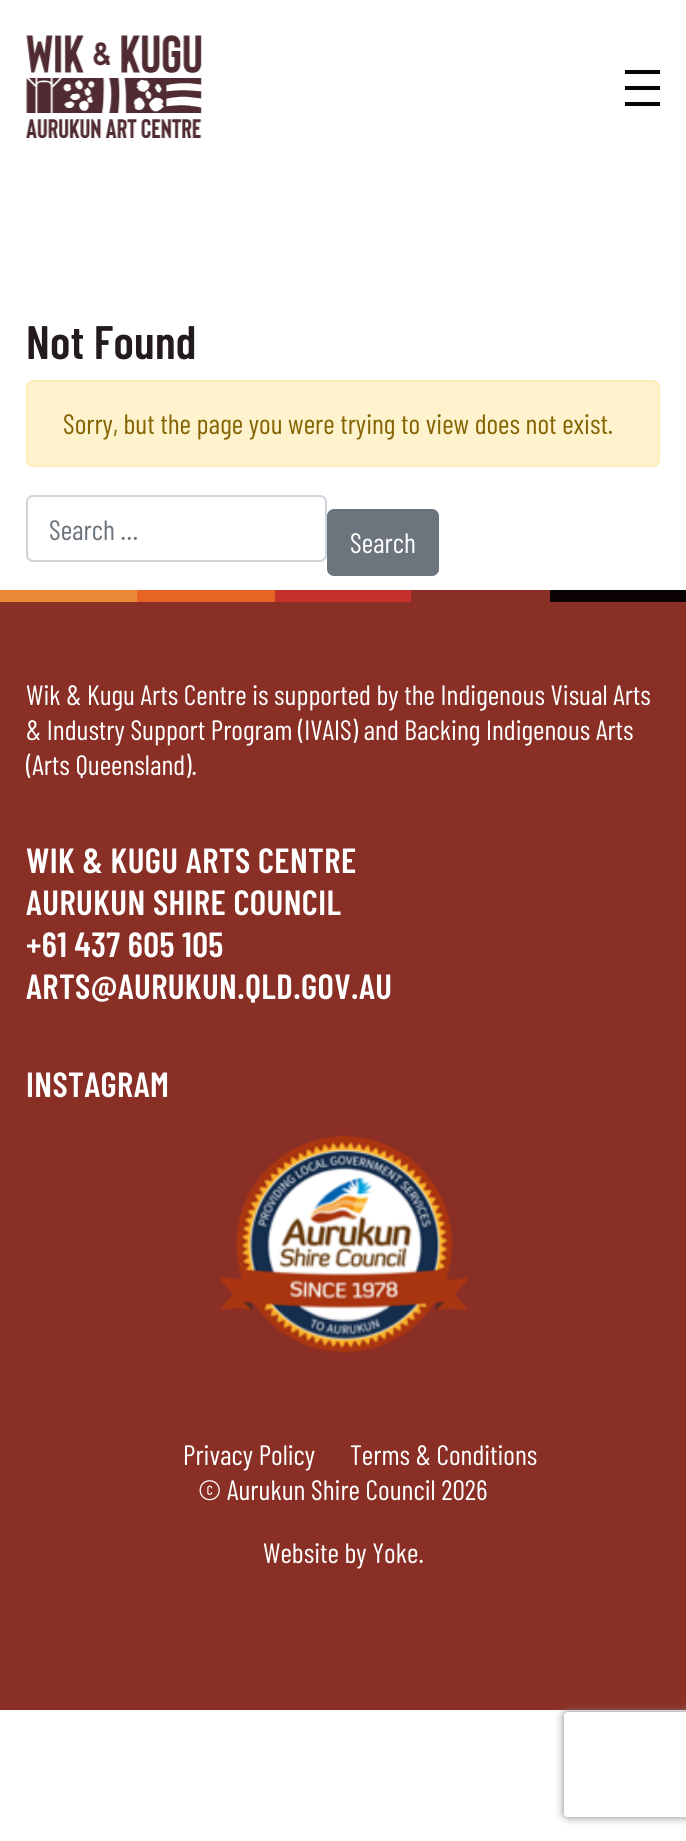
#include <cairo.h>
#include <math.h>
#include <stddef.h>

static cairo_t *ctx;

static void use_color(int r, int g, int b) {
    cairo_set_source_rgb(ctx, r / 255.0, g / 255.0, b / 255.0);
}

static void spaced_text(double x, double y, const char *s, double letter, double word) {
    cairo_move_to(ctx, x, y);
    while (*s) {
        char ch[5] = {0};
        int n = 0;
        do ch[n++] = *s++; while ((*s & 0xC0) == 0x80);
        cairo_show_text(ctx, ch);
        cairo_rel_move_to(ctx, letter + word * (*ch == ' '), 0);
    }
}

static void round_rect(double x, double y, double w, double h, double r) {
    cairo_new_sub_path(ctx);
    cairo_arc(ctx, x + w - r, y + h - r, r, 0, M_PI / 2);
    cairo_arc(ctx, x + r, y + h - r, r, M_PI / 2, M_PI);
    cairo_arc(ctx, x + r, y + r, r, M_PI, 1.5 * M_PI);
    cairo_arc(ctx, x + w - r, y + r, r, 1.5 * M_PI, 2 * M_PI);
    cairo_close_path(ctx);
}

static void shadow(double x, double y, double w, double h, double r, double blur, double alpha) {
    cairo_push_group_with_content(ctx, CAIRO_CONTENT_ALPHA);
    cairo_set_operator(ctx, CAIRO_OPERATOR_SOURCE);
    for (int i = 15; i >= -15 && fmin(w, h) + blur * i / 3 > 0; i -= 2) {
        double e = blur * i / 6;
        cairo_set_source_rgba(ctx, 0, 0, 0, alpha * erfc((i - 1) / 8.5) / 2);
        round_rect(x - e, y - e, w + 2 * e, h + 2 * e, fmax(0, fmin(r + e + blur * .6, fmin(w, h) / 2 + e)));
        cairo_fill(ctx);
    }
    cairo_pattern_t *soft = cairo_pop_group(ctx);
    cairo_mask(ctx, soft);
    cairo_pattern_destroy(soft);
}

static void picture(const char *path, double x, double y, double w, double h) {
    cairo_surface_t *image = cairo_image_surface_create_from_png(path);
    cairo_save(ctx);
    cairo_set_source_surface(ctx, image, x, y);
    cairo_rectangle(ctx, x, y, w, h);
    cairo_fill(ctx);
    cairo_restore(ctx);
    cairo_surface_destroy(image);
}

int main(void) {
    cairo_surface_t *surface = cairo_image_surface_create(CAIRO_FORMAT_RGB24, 686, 1841);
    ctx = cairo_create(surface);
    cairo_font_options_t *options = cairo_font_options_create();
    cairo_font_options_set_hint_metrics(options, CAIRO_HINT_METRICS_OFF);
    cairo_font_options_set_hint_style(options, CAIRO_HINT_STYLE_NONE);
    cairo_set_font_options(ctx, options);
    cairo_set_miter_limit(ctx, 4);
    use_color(255, 255, 255);
    cairo_paint(ctx);
    picture("img1.png", 26, 35, 176, 103);
    use_color(10, 2, 3);
    cairo_rectangle(ctx, 625, 70, 35, 4);
    cairo_fill(ctx);
    cairo_rectangle(ctx, 625, 86, 35, 4);
    cairo_fill(ctx);
    cairo_rectangle(ctx, 625, 102, 35, 4);
    cairo_fill(ctx);
    cairo_select_font_face(ctx, "Barlow Condensed SemiBold", CAIRO_FONT_SLANT_NORMAL, CAIRO_FONT_WEIGHT_NORMAL);
    cairo_set_font_size(ctx, 47);
    use_color(35, 27, 28);
    spaced_text(26, 359, "Not Found", 0.25, 0);
    use_color(255, 243, 205);
    round_rect(27, 381, 632, 85, 6);
    cairo_fill_preserve(ctx);
    use_color(255, 238, 186);
    cairo_stroke(ctx);
    cairo_select_font_face(ctx, "Barlow Condensed", CAIRO_FONT_SLANT_NORMAL, CAIRO_FONT_WEIGHT_NORMAL);
    cairo_set_font_size(ctx, 28);
    use_color(133, 100, 4);
    cairo_move_to(ctx, 63, 434);
    cairo_show_text(ctx, "Sorry, but the page you were trying to view does not exist.");
    round_rect(27, 496, 299, 65, 6);
    use_color(206, 212, 218);
    cairo_stroke(ctx);
    use_color(108, 117, 125);
    cairo_move_to(ctx, 49, 540);
    cairo_show_text(ctx, "Search …");
    round_rect(328, 510, 110, 65, 6);
    cairo_fill_preserve(ctx);
    cairo_stroke(ctx);
    use_color(255, 255, 255);
    cairo_move_to(ctx, 350, 553);
    cairo_show_text(ctx, "Search");
    use_color(138, 47, 37);
    cairo_rectangle(ctx, 0, 590, 686, 1120);
    cairo_fill(ctx);
    use_color(234, 137, 54);
    cairo_rectangle(ctx, 0, 590, 137, 12);
    cairo_fill(ctx);
    use_color(231, 100, 37);
    cairo_rectangle(ctx, 137, 590, 138, 12);
    cairo_fill(ctx);
    use_color(199, 49, 43);
    cairo_rectangle(ctx, 275, 590, 136, 12);
    cairo_fill(ctx);
    use_color(10, 2, 3);
    cairo_rectangle(ctx, 550, 590, 136, 12);
    cairo_fill(ctx);
    use_color(255, 255, 255);
    cairo_move_to(ctx, 26, 705);
    cairo_show_text(ctx, "Wik & Kugu Arts Centre is supported by the Indigenous Visual Arts");
    cairo_move_to(ctx, 26, 740);
    cairo_show_text(ctx, "& Industry Support Program (IVAIS) and Backing Indigenous Arts");
    cairo_move_to(ctx, 26, 775);
    cairo_show_text(ctx, "(Arts Queensland).");
    cairo_select_font_face(ctx, "Barlow Condensed SemiBold", CAIRO_FONT_SLANT_NORMAL, CAIRO_FONT_WEIGHT_NORMAL);
    cairo_set_font_size(ctx, 35);
    spaced_text(26, 873, "WIK & KUGU ARTS CENTRE", 0.4, 0);
    spaced_text(26, 915, "AURUKUN SHIRE COUNCIL", 0.4, 0);
    spaced_text(26, 957, "+61 437 605 105", 0.4, 0);
    spaced_text(26, 999, "ARTS@AURUKUN.QLD.GOV.AU", 0.4, 0);
    spaced_text(26, 1097, "INSTAGRAM", 0.4, 0);
    picture("img2.png", 219, 1135, 250, 218);
    cairo_select_font_face(ctx, "Barlow Condensed", CAIRO_FONT_SLANT_NORMAL, CAIRO_FONT_WEIGHT_NORMAL);
    cairo_set_font_size(ctx, 28);
    cairo_move_to(ctx, 183, 1465);
    cairo_show_text(ctx, "Privacy Policy");
    cairo_move_to(ctx, 350, 1465);
    cairo_show_text(ctx, "Terms & Conditions");
    cairo_move_to(ctx, 198, 1500);
    cairo_show_text(ctx, "© Aurukun Shire Council 2026");
    cairo_move_to(ctx, 263, 1563);
    cairo_show_text(ctx, "Website by Yoke.");
    cairo_save(ctx);
    cairo_set_fill_rule(ctx, CAIRO_FILL_RULE_EVEN_ODD);
    cairo_new_path(ctx);
    cairo_move_to(ctx, 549, 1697);
    cairo_line_to(ctx, 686, 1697);
    cairo_line_to(ctx, 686, 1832);
    cairo_line_to(ctx, 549, 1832);
    cairo_close_path(ctx);
    cairo_move_to(ctx, 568, 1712);
    cairo_line_to(ctx, 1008, 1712);
    cairo_curve_to(ctx, 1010, 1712, 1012, 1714, 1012, 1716);
    cairo_line_to(ctx, 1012, 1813);
    cairo_curve_to(ctx, 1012, 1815, 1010, 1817, 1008, 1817);
    cairo_line_to(ctx, 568, 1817);
    cairo_curve_to(ctx, 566, 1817, 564, 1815, 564, 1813);
    cairo_line_to(ctx, 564, 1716);
    cairo_curve_to(ctx, 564, 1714, 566, 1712, 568, 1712);
    cairo_close_path(ctx);
    cairo_clip(ctx);
    use_color(128, 128, 128);
    shadow(564, 1712, 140, 105, 4, 4.5, 1);
    cairo_restore(ctx);
    cairo_surface_write_to_png(surface, "result.png");
    cairo_font_options_destroy(options);
    cairo_destroy(ctx);
    cairo_surface_destroy(surface);
    return 0;
}
